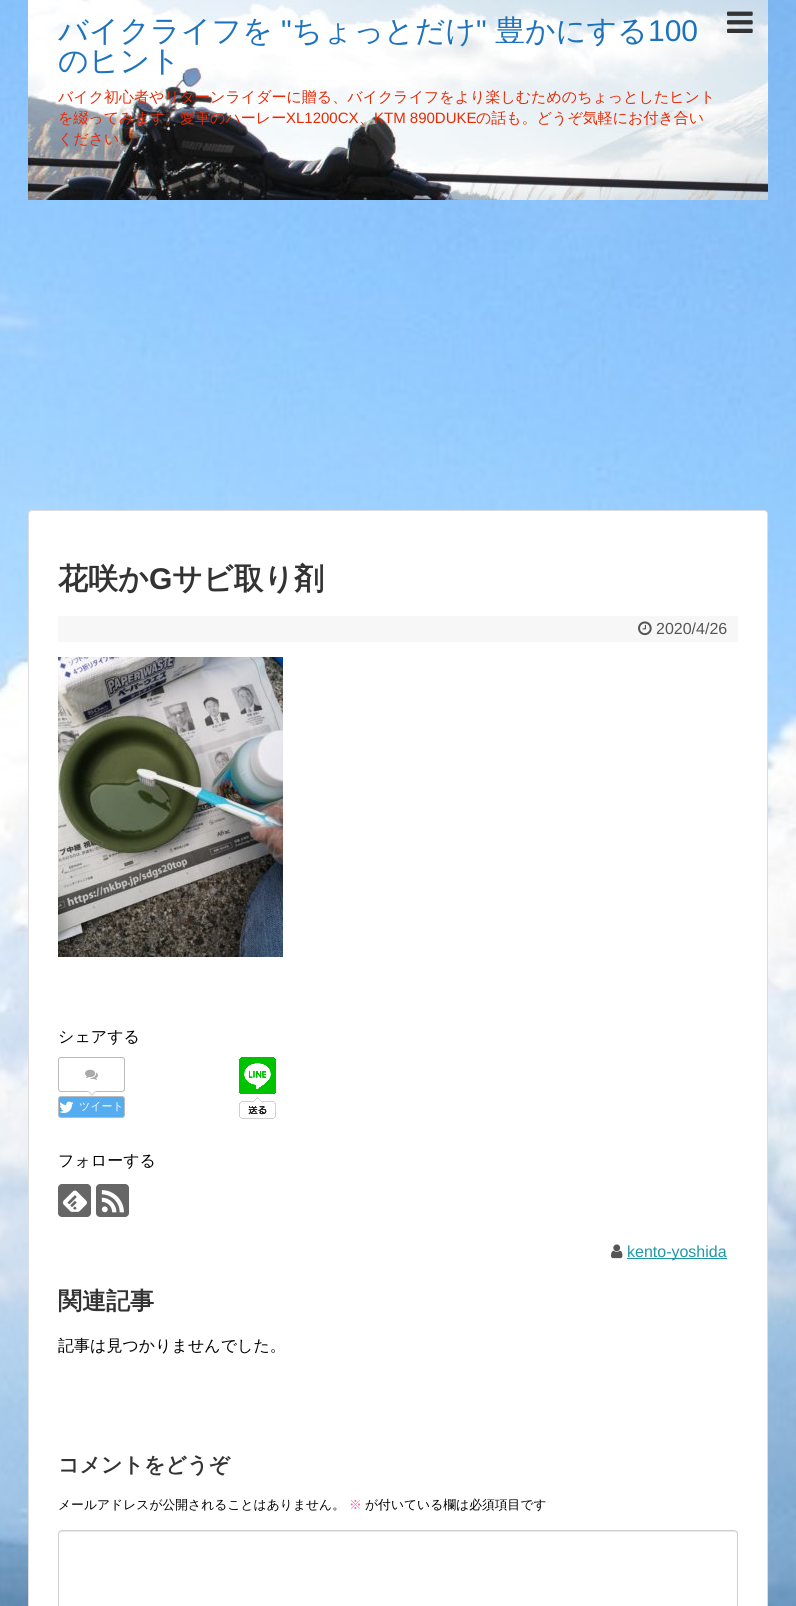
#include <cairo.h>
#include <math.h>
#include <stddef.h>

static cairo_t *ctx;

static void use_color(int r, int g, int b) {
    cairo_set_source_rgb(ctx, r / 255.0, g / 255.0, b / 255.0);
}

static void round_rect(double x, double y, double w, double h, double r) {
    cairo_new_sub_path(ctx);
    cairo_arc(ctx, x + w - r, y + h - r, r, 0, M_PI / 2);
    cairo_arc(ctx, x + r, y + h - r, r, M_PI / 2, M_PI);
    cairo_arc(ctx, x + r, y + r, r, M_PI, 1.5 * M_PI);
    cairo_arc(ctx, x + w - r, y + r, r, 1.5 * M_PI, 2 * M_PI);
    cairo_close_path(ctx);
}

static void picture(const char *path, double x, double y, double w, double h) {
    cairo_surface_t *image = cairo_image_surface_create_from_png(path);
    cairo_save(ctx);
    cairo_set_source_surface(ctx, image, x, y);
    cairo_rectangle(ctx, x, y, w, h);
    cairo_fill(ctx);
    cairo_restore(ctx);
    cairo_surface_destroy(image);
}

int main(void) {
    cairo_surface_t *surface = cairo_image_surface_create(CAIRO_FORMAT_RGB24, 796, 1606);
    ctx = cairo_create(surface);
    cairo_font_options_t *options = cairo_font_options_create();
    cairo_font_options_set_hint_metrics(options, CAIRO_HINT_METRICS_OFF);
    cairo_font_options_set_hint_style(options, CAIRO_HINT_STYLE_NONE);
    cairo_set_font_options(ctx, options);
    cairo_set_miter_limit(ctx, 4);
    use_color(255, 255, 255);
    cairo_paint(ctx);
    picture("img1.png", 0, 0, 796, 1606);
    picture("img2.png", 28, 0, 740, 200);
    cairo_select_font_face(ctx, "WenQuanYi Zen Hei Medium", CAIRO_FONT_SLANT_NORMAL, CAIRO_FONT_WEIGHT_NORMAL);
    cairo_set_font_size(ctx, 30);
    use_color(30, 115, 190);
    cairo_move_to(ctx, 58, 41);
    cairo_show_text(ctx, "バイクライフを");
    cairo_select_font_face(ctx, "Liberation Sans", CAIRO_FONT_SLANT_NORMAL, CAIRO_FONT_WEIGHT_NORMAL);
    cairo_move_to(ctx, 281, 41);
    cairo_show_text(ctx, "\"");
    cairo_select_font_face(ctx, "WenQuanYi Zen Hei Medium", CAIRO_FONT_SLANT_NORMAL, CAIRO_FONT_WEIGHT_NORMAL);
    cairo_move_to(ctx, 292, 41);
    cairo_show_text(ctx, "ちょっとだけ");
    cairo_select_font_face(ctx, "Liberation Sans", CAIRO_FONT_SLANT_NORMAL, CAIRO_FONT_WEIGHT_NORMAL);
    cairo_move_to(ctx, 476, 41);
    cairo_show_text(ctx, "\"");
    cairo_select_font_face(ctx, "WenQuanYi Zen Hei Medium", CAIRO_FONT_SLANT_NORMAL, CAIRO_FONT_WEIGHT_NORMAL);
    cairo_move_to(ctx, 495, 41);
    cairo_show_text(ctx, "豊かにする");
    cairo_select_font_face(ctx, "Liberation Sans", CAIRO_FONT_SLANT_NORMAL, CAIRO_FONT_WEIGHT_NORMAL);
    cairo_move_to(ctx, 648, 41);
    cairo_show_text(ctx, "100");
    cairo_select_font_face(ctx, "WenQuanYi Zen Hei Medium", CAIRO_FONT_SLANT_NORMAL, CAIRO_FONT_WEIGHT_NORMAL);
    cairo_move_to(ctx, 58, 71);
    cairo_show_text(ctx, "のヒント");
    cairo_set_font_size(ctx, 15);
    use_color(232, 42, 4);
    cairo_move_to(ctx, 58, 102);
    cairo_show_text(ctx, "バイク初心者やリターンライダーに贈る、バイクライフをより楽しむためのちょっとしたヒント");
    cairo_move_to(ctx, 58, 123);
    cairo_show_text(ctx, "を綴ってみます。愛車のハーレー");
    cairo_select_font_face(ctx, "Liberation Sans", CAIRO_FONT_SLANT_NORMAL, CAIRO_FONT_WEIGHT_NORMAL);
    cairo_move_to(ctx, 286, 123);
    cairo_show_text(ctx, "XL1200CX");
    cairo_select_font_face(ctx, "WenQuanYi Zen Hei Medium", CAIRO_FONT_SLANT_NORMAL, CAIRO_FONT_WEIGHT_NORMAL);
    cairo_move_to(ctx, 359, 123);
    cairo_show_text(ctx, "、");
    cairo_select_font_face(ctx, "Liberation Sans", CAIRO_FONT_SLANT_NORMAL, CAIRO_FONT_WEIGHT_NORMAL);
    cairo_move_to(ctx, 374, 123);
    cairo_show_text(ctx, "KTM 890DUKE");
    cairo_select_font_face(ctx, "WenQuanYi Zen Hei Medium", CAIRO_FONT_SLANT_NORMAL, CAIRO_FONT_WEIGHT_NORMAL);
    cairo_move_to(ctx, 476, 123);
    cairo_show_text(ctx, "の話も。どうぞ気軽にお付き合い");
    cairo_move_to(ctx, 58, 144);
    cairo_show_text(ctx, "ください。");
    picture("img3.png", 727, 11, 26, 22);
    use_color(255, 255, 255);
    round_rect(28.5, 510.5, 739, 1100, 3.5);
    cairo_fill_preserve(ctx);
    use_color(221, 221, 221);
    cairo_set_line_width(ctx, 1);
    cairo_stroke(ctx);
    cairo_select_font_face(ctx, "WenQuanYi Zen Hei", CAIRO_FONT_SLANT_NORMAL, CAIRO_FONT_WEIGHT_BOLD);
    cairo_set_font_size(ctx, 30);
    use_color(51, 51, 51);
    cairo_move_to(ctx, 58, 589);
    cairo_show_text(ctx, "花咲か");
    cairo_select_font_face(ctx, "Liberation Sans", CAIRO_FONT_SLANT_NORMAL, CAIRO_FONT_WEIGHT_BOLD);
    cairo_move_to(ctx, 149, 589);
    cairo_show_text(ctx, "G");
    cairo_select_font_face(ctx, "WenQuanYi Zen Hei", CAIRO_FONT_SLANT_NORMAL, CAIRO_FONT_WEIGHT_BOLD);
    cairo_move_to(ctx, 172, 589);
    cairo_show_text(ctx, "サビ取り剤");
    use_color(247, 247, 247);
    cairo_rectangle(ctx, 58, 616, 680, 26);
    cairo_fill(ctx);
    picture("img4.png", 638, 621, 14, 15);
    cairo_select_font_face(ctx, "Liberation Sans", CAIRO_FONT_SLANT_NORMAL, CAIRO_FONT_WEIGHT_NORMAL);
    cairo_set_font_size(ctx, 16);
    use_color(85, 85, 85);
    cairo_move_to(ctx, 656, 634);
    cairo_show_text(ctx, "2020/4/26");
    picture("img5.png", 58, 657, 225, 300);
    cairo_select_font_face(ctx, "WenQuanYi Zen Hei Medium", CAIRO_FONT_SLANT_NORMAL, CAIRO_FONT_WEIGHT_NORMAL);
    use_color(0, 0, 0);
    cairo_move_to(ctx, 58, 1042);
    cairo_show_text(ctx, "シェアする");
    round_rect(58.5, 1057.5, 66, 34, 2.5);
    use_color(187, 187, 187);
    cairo_stroke(ctx);
    picture("img6.png", 85, 1069, 13, 11);
    use_color(221, 221, 221);
    cairo_new_path(ctx);
    cairo_move_to(ctx, 87, 1091);
    cairo_line_to(ctx, 97, 1091);
    cairo_line_to(ctx, 92, 1096);
    cairo_close_path(ctx);
    cairo_fill(ctx);
    use_color(255, 255, 255);
    cairo_new_path(ctx);
    cairo_move_to(ctx, 89, 1091);
    cairo_line_to(ctx, 95, 1091);
    cairo_line_to(ctx, 92, 1094);
    cairo_close_path(ctx);
    cairo_fill(ctx);
    use_color(85, 172, 238);
    round_rect(58.5, 1096.5, 66, 21, 2.5);
    cairo_fill_preserve(ctx);
    use_color(187, 187, 187);
    cairo_stroke(ctx);
    picture("img7.png", 59, 1101, 15, 12);
    cairo_set_font_size(ctx, 11);
    use_color(255, 255, 255);
    cairo_move_to(ctx, 79, 1110);
    cairo_show_text(ctx, "ツイート");
    picture("img8.png", 239, 1057, 37, 62);
    cairo_set_font_size(ctx, 16);
    use_color(0, 0, 0);
    cairo_move_to(ctx, 58, 1166);
    cairo_show_text(ctx, "フォローする");
    use_color(102, 102, 102);
    round_rect(58, 1184, 33, 33, 4);
    cairo_fill(ctx);
    picture("img9.png", 62, 1190, 25, 22);
    round_rect(96, 1184, 33, 33, 4);
    cairo_fill(ctx);
    picture("img10.png", 101, 1190, 23, 23);
    picture("img11.png", 611, 1244, 12, 15);
    use_color(32, 152, 168);
    cairo_rectangle(ctx, 627, 1258, 100, 1);
    cairo_fill(ctx);
    cairo_select_font_face(ctx, "Liberation Sans", CAIRO_FONT_SLANT_NORMAL, CAIRO_FONT_WEIGHT_NORMAL);
    cairo_move_to(ctx, 627, 1257);
    cairo_show_text(ctx, "kento-yoshida");
    cairo_select_font_face(ctx, "WenQuanYi Zen Hei", CAIRO_FONT_SLANT_NORMAL, CAIRO_FONT_WEIGHT_BOLD);
    cairo_set_font_size(ctx, 24);
    use_color(51, 51, 51);
    cairo_move_to(ctx, 58, 1309);
    cairo_show_text(ctx, "関連記事");
    cairo_select_font_face(ctx, "WenQuanYi Zen Hei Medium", CAIRO_FONT_SLANT_NORMAL, CAIRO_FONT_WEIGHT_NORMAL);
    cairo_set_font_size(ctx, 16);
    use_color(0, 0, 0);
    cairo_move_to(ctx, 58, 1351);
    cairo_show_text(ctx, "記事は見つかりませんでした。");
    cairo_select_font_face(ctx, "WenQuanYi Zen Hei", CAIRO_FONT_SLANT_NORMAL, CAIRO_FONT_WEIGHT_BOLD);
    cairo_set_font_size(ctx, 21);
    use_color(51, 51, 51);
    cairo_move_to(ctx, 58, 1472);
    cairo_show_text(ctx, "コメントをどうぞ");
    cairo_select_font_face(ctx, "WenQuanYi Zen Hei Medium", CAIRO_FONT_SLANT_NORMAL, CAIRO_FONT_WEIGHT_NORMAL);
    cairo_set_font_size(ctx, 12.8);
    use_color(0, 0, 0);
    cairo_move_to(ctx, 58, 1509);
    cairo_show_text(ctx, "メールアドレスが公開されることはありません。");
    use_color(254, 86, 170);
    cairo_move_to(ctx, 349, 1509);
    cairo_show_text(ctx, "※");
    use_color(0, 0, 0);
    cairo_move_to(ctx, 365, 1509);
    cairo_show_text(ctx, "が付いている欄は必須項目です");
    use_color(236, 236, 236);
    cairo_new_path(ctx);
    cairo_move_to(ctx, 62, 1532);
    cairo_line_to(ctx, 734, 1532);
    cairo_curve_to(ctx, 736, 1532, 737, 1533, 737, 1535);
    cairo_line_to(ctx, 737, 1534);
    cairo_curve_to(ctx, 737, 1532, 736, 1531, 734, 1531);
    cairo_line_to(ctx, 62, 1531);
    cairo_curve_to(ctx, 60, 1531, 59, 1532, 59, 1534);
    cairo_line_to(ctx, 59, 1535);
    cairo_curve_to(ctx, 59, 1533, 60, 1532, 62, 1532);
    cairo_close_path(ctx);
    cairo_fill(ctx);
    round_rect(58.5, 1530.5, 679, 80, 3.5);
    use_color(204, 204, 204);
    cairo_stroke(ctx);
    cairo_surface_write_to_png(surface, "result.png");
    cairo_font_options_destroy(options);
    cairo_destroy(ctx);
    cairo_surface_destroy(surface);
    return 0;
}
